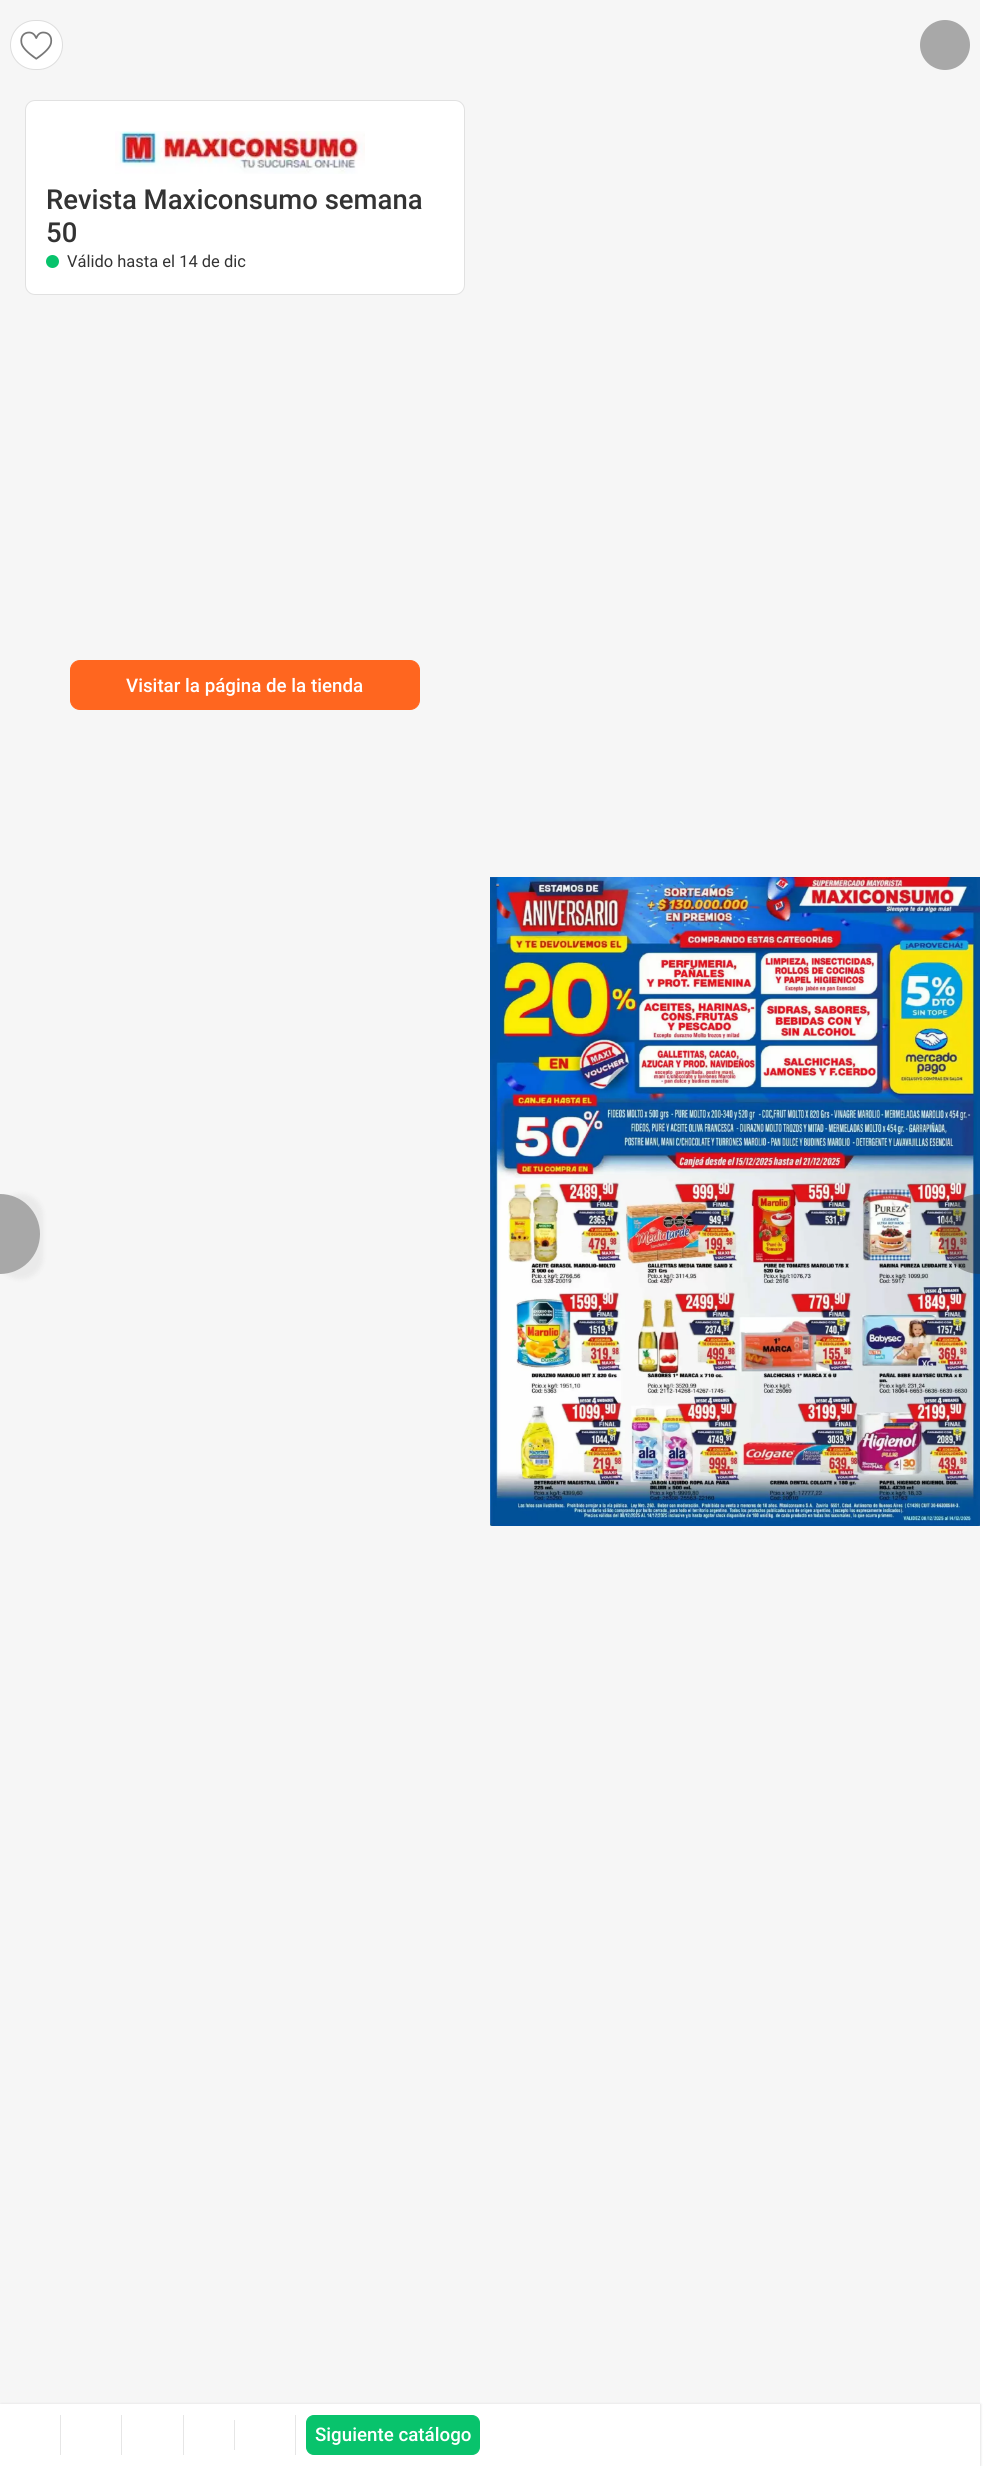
#include <cairo.h>
#include <math.h>
#include <stddef.h>

static cairo_t *ctx;

static void use_color(int r, int g, int b) {
    cairo_set_source_rgb(ctx, r / 255.0, g / 255.0, b / 255.0);
}

static void round_rect(double x, double y, double w, double h, double r) {
    cairo_new_sub_path(ctx);
    cairo_arc(ctx, x + w - r, y + h - r, r, 0, M_PI / 2);
    cairo_arc(ctx, x + r, y + h - r, r, M_PI / 2, M_PI);
    cairo_arc(ctx, x + r, y + r, r, M_PI, 1.5 * M_PI);
    cairo_arc(ctx, x + w - r, y + r, r, 1.5 * M_PI, 2 * M_PI);
    cairo_close_path(ctx);
}

static void shadow(double x, double y, double w, double h, double r, double blur, double alpha) {
    cairo_push_group_with_content(ctx, CAIRO_CONTENT_ALPHA);
    cairo_set_operator(ctx, CAIRO_OPERATOR_SOURCE);
    for (int i = 15; i >= -15 && fmin(w, h) + blur * i / 3 > 0; i -= 2) {
        double e = blur * i / 6;
        cairo_set_source_rgba(ctx, 0, 0, 0, alpha * erfc((i - 1) / 8.5) / 2);
        round_rect(x - e, y - e, w + 2 * e, h + 2 * e, fmax(0, fmin(r + e + blur * .6, fmin(w, h) / 2 + e)));
        cairo_fill(ctx);
    }
    cairo_pattern_t *soft = cairo_pop_group(ctx);
    cairo_mask(ctx, soft);
    cairo_pattern_destroy(soft);
}

static void picture(const char *path, double x, double y, double w, double h) {
    cairo_surface_t *image = cairo_image_surface_create_from_png(path);
    cairo_save(ctx);
    cairo_set_source_surface(ctx, image, x, y);
    cairo_rectangle(ctx, x, y, w, h);
    cairo_fill(ctx);
    cairo_restore(ctx);
    cairo_surface_destroy(image);
}

int main(void) {
    cairo_surface_t *surface = cairo_image_surface_create(CAIRO_FORMAT_RGB24, 998, 2466);
    ctx = cairo_create(surface);
    cairo_font_options_t *options = cairo_font_options_create();
    cairo_font_options_set_hint_metrics(options, CAIRO_HINT_METRICS_OFF);
    cairo_font_options_set_hint_style(options, CAIRO_HINT_STYLE_NONE);
    cairo_set_font_options(ctx, options);
    cairo_set_miter_limit(ctx, 4);
    use_color(255, 255, 255);
    cairo_paint(ctx);
    use_color(246, 246, 246);
    cairo_rectangle(ctx, 0, 0, 980, 2404);
    cairo_fill(ctx);
    use_color(255, 255, 255);
    round_rect(10.5, 20.5, 52, 49, 24.5);
    cairo_fill_preserve(ctx);
    use_color(221, 221, 221);
    cairo_set_line_width(ctx, 1);
    cairo_stroke(ctx);
    picture("img1.png", 20, 31, 33, 29);
    use_color(168, 168, 168);
    cairo_arc(ctx, 945, 45, 25, 0, 2 * M_PI);
    cairo_fill(ctx);
    use_color(255, 255, 255);
    round_rect(25, 100, 440, 195, 10);
    cairo_fill(ctx);
    round_rect(25.5, 100.5, 439, 194, 9.5);
    cairo_set_source_rgba(ctx, 0, 0, 0, 0.12);
    cairo_stroke(ctx);
    picture("img2.png", 115, 131, 250, 43);
    cairo_select_font_face(ctx, "Roboto Medium", CAIRO_FONT_SLANT_NORMAL, CAIRO_FONT_WEIGHT_NORMAL);
    cairo_set_font_size(ctx, 27.5);
    use_color(51, 51, 51);
    cairo_move_to(ctx, 46, 209);
    cairo_show_text(ctx, "Revista Maxiconsumo semana");
    cairo_move_to(ctx, 46, 242);
    cairo_show_text(ctx, "50");
    use_color(8, 195, 108);
    cairo_new_path(ctx);
    cairo_arc(ctx, 52.5, 261.5, 6.5, 0, 2 * M_PI);
    cairo_fill(ctx);
    cairo_select_font_face(ctx, "Roboto", CAIRO_FONT_SLANT_NORMAL, CAIRO_FONT_WEIGHT_NORMAL);
    cairo_set_font_size(ctx, 16.5);
    use_color(51, 51, 51);
    cairo_move_to(ctx, 67, 267);
    cairo_show_text(ctx, "Válido hasta el 14 de dic");
    use_color(255, 102, 31);
    round_rect(70.5, 660.5, 349, 49, 9.5);
    cairo_fill_preserve(ctx);
    cairo_stroke(ctx);
    cairo_select_font_face(ctx, "Roboto Medium", CAIRO_FONT_SLANT_NORMAL, CAIRO_FONT_WEIGHT_NORMAL);
    cairo_set_font_size(ctx, 18.75);
    use_color(255, 255, 255);
    cairo_move_to(ctx, 126, 692);
    cairo_show_text(ctx, "Visitar la página de la tienda");
    picture("img3.png", 490, 877, 490, 649);
    cairo_save(ctx);
    cairo_set_fill_rule(ctx, CAIRO_FILL_RULE_EVEN_ODD);
    cairo_new_path(ctx);
    cairo_move_to(ctx, 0, 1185);
    cairo_line_to(ctx, 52, 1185);
    cairo_line_to(ctx, 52, 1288);
    cairo_line_to(ctx, 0, 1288);
    cairo_close_path(ctx);
    cairo_move_to(ctx, 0, 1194);
    cairo_curve_to(ctx, 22, 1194, 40, 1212, 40, 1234);
    cairo_curve_to(ctx, 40, 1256, 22, 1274, 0, 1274);
    cairo_close_path(ctx);
    cairo_clip(ctx);
    use_color(0, 0, 0);
    shadow(-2, 1194, 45, 85, 43, 2.5, 0.05);
    cairo_restore(ctx);
    cairo_set_source_rgba(ctx, 0.2, 0.2, 0.2, 0.4);
    cairo_new_path(ctx);
    cairo_move_to(ctx, 0, 1194);
    cairo_curve_to(ctx, 22, 1194, 40, 1212, 40, 1234);
    cairo_curve_to(ctx, 40, 1256, 22, 1274, 0, 1274);
    cairo_close_path(ctx);
    cairo_fill(ctx);
    cairo_new_path(ctx);
    cairo_move_to(ctx, 980, 1194);
    cairo_line_to(ctx, 980, 1274);
    cairo_curve_to(ctx, 958, 1274, 940, 1256, 940, 1234);
    cairo_curve_to(ctx, 940, 1212, 958, 1194, 980, 1194);
    cairo_close_path(ctx);
    cairo_fill(ctx);
    use_color(0, 0, 0);
    shadow(1, 2404, 980, 62, 0, 1, 0.1);
    use_color(255, 255, 255);
    cairo_rectangle(ctx, 0, 2404, 980, 62);
    cairo_fill(ctx);
    use_color(230, 230, 230);
    cairo_rectangle(ctx, 60, 2415, 1, 40);
    cairo_fill(ctx);
    cairo_rectangle(ctx, 121, 2415, 1, 40);
    cairo_fill(ctx);
    cairo_rectangle(ctx, 183, 2415, 1, 40);
    cairo_fill(ctx);
    cairo_rectangle(ctx, 234, 2420, 1, 30);
    cairo_fill(ctx);
    cairo_rectangle(ctx, 295, 2415, 1, 40);
    cairo_fill(ctx);
    use_color(8, 195, 108);
    round_rect(306.5, 2415.5, 173, 39, 7.5);
    cairo_fill_preserve(ctx);
    cairo_stroke(ctx);
    use_color(255, 255, 255);
    cairo_move_to(ctx, 315, 2441);
    cairo_show_text(ctx, "Siguiente catálogo");
    cairo_surface_write_to_png(surface, "result.png");
    cairo_font_options_destroy(options);
    cairo_destroy(ctx);
    cairo_surface_destroy(surface);
    return 0;
}
